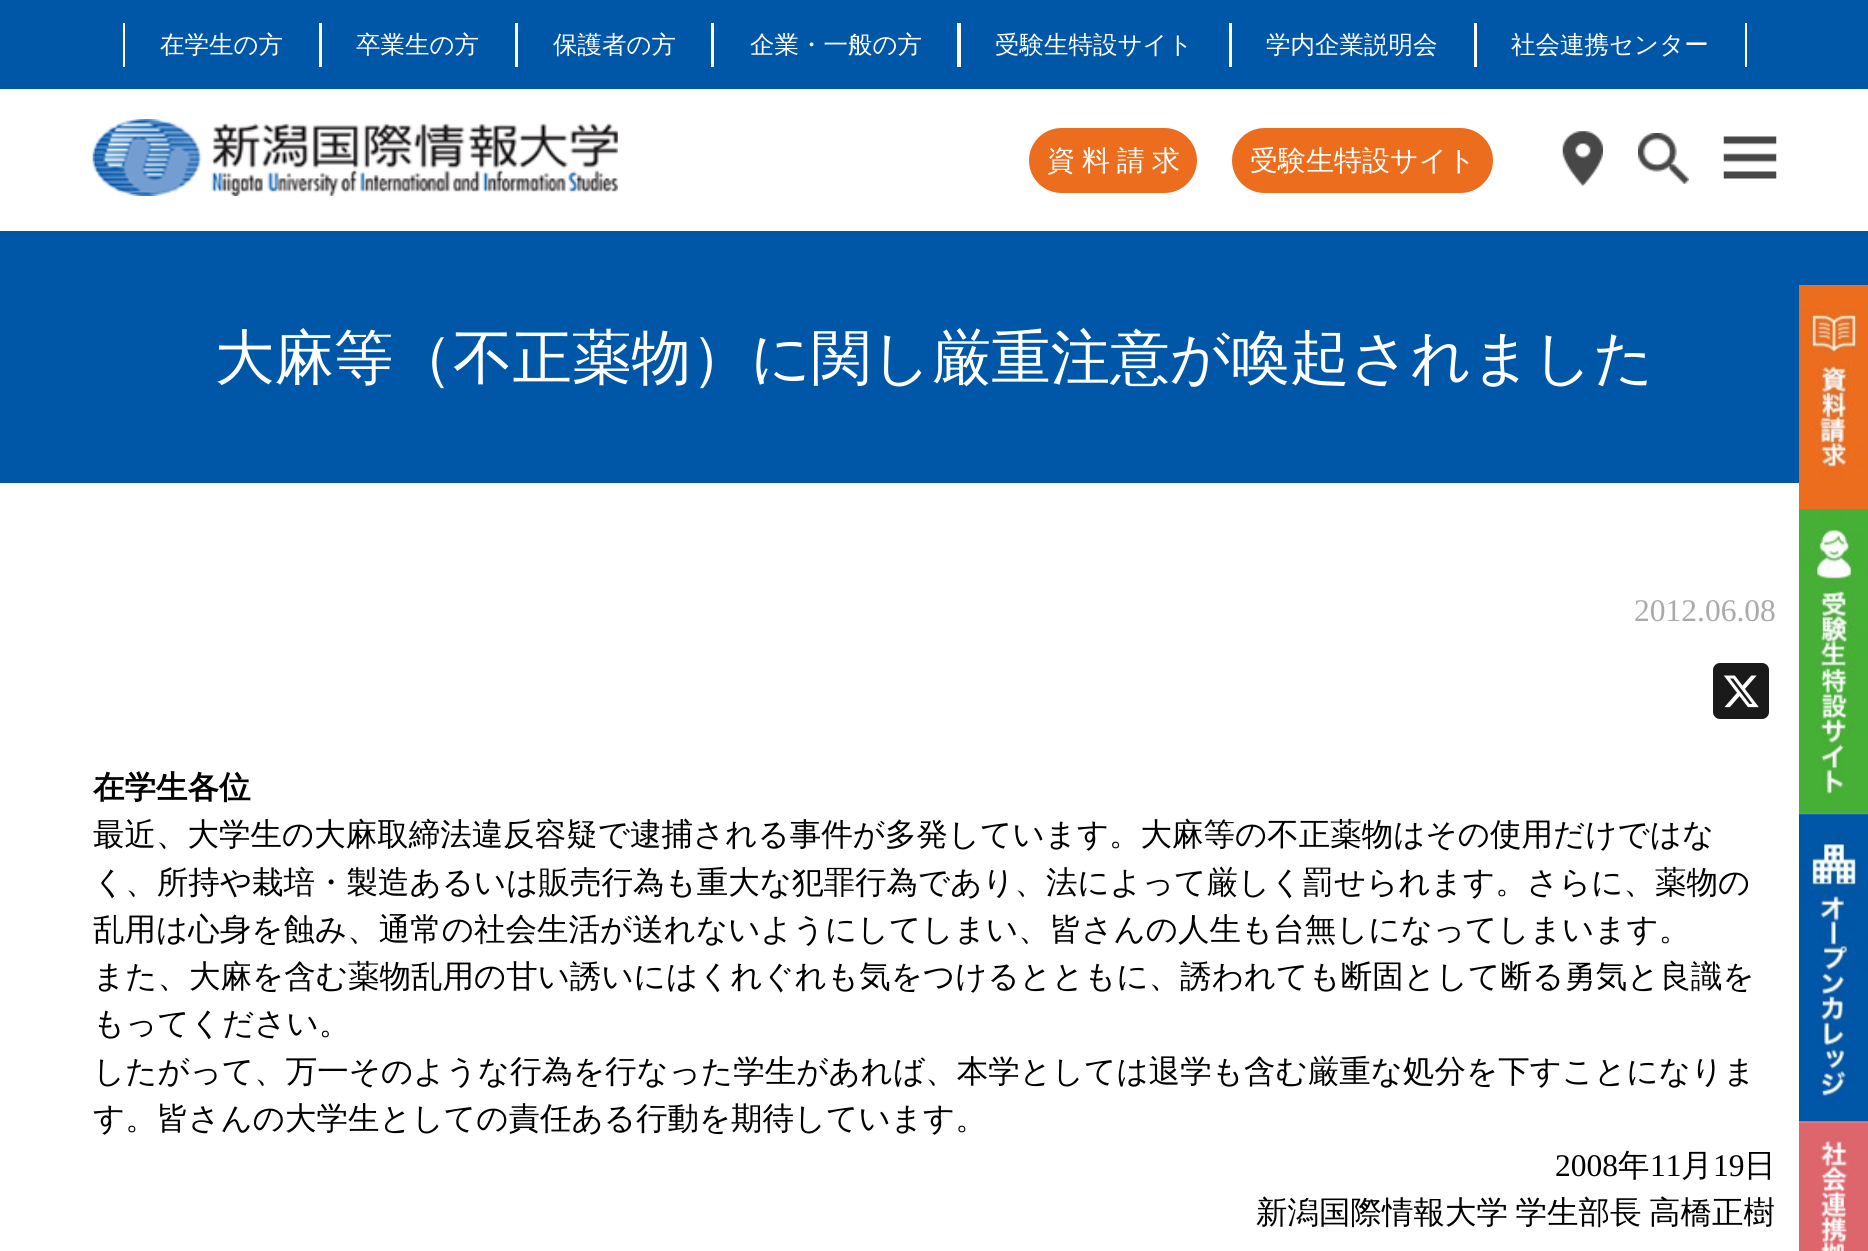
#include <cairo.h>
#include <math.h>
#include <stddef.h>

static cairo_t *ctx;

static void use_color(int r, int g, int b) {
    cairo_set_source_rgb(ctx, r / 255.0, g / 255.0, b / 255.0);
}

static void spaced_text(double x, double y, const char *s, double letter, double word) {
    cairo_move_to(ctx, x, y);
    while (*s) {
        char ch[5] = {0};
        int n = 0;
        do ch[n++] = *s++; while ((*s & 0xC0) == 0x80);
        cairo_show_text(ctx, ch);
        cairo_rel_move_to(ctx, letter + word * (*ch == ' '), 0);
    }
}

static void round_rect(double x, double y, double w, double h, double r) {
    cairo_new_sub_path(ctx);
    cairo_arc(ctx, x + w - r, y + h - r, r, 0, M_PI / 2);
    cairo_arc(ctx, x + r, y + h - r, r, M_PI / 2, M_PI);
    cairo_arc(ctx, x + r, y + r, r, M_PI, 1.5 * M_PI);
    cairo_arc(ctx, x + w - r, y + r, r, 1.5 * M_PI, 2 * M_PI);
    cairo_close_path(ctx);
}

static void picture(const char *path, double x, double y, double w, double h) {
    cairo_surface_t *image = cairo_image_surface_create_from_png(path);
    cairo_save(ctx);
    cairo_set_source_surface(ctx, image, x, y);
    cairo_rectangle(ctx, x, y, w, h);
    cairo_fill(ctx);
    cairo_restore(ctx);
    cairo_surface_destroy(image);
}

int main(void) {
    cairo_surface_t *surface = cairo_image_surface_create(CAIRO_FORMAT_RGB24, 1868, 1251);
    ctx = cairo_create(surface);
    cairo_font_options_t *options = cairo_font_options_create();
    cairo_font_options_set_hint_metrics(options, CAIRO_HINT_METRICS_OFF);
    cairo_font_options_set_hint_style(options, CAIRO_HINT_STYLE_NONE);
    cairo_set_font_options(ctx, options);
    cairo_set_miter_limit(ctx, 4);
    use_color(255, 255, 255);
    cairo_paint(ctx);
    use_color(0, 87, 167);
    cairo_rectangle(ctx, 0, 0, 1868, 89);
    cairo_fill(ctx);
    use_color(255, 255, 255);
    cairo_rectangle(ctx, 319, 23, 3, 44);
    cairo_fill(ctx);
    cairo_rectangle(ctx, 123, 23, 2, 44);
    cairo_fill(ctx);
    cairo_select_font_face(ctx, "WenQuanYi Zen Hei Medium", CAIRO_FONT_SLANT_NORMAL, CAIRO_FONT_WEIGHT_NORMAL);
    cairo_set_font_size(ctx, 24.5);
    cairo_move_to(ctx, 160, 53);
    cairo_show_text(ctx, "在学生の方");
    cairo_rectangle(ctx, 515, 23, 3, 44);
    cairo_fill(ctx);
    cairo_move_to(ctx, 356, 53);
    cairo_show_text(ctx, "卒業生の方");
    cairo_rectangle(ctx, 711, 23, 3, 44);
    cairo_fill(ctx);
    cairo_move_to(ctx, 553, 53);
    cairo_show_text(ctx, "保護者の方");
    cairo_rectangle(ctx, 957, 23, 4, 44);
    cairo_fill(ctx);
    cairo_move_to(ctx, 750, 53);
    cairo_show_text(ctx, "企業・一般の方");
    cairo_rectangle(ctx, 1229, 23, 3, 44);
    cairo_fill(ctx);
    cairo_move_to(ctx, 995, 53);
    cairo_show_text(ctx, "受験生特設サイト");
    cairo_rectangle(ctx, 1474, 23, 3, 44);
    cairo_fill(ctx);
    cairo_move_to(ctx, 1266, 53);
    cairo_show_text(ctx, "学内企業説明会");
    cairo_rectangle(ctx, 1745, 23, 2, 44);
    cairo_fill(ctx);
    cairo_move_to(ctx, 1511, 53);
    cairo_show_text(ctx, "社会連携センター");
    picture("img1.png", 92, 119, 526, 77);
    use_color(237, 109, 31);
    round_rect(1029, 128, 168, 65, 32.5);
    cairo_fill(ctx);
    cairo_set_font_size(ctx, 28);
    use_color(255, 255, 255);
    cairo_move_to(ctx, 1047, 170);
    cairo_show_text(ctx, "資");
    cairo_move_to(ctx, 1082, 170);
    cairo_show_text(ctx, "料");
    cairo_move_to(ctx, 1117, 170);
    cairo_show_text(ctx, "請");
    cairo_move_to(ctx, 1152, 170);
    cairo_show_text(ctx, "求");
    use_color(237, 109, 31);
    round_rect(1232, 128, 261, 65, 32.5);
    cairo_fill(ctx);
    use_color(255, 255, 255);
    cairo_move_to(ctx, 1250, 170);
    cairo_show_text(ctx, "受験生特設サイト");
    picture("img2.png", 1562, 131, 41, 55);
    picture("img3.png", 1638, 133, 51, 51);
    picture("img4.png", 1723, 136, 54, 43);
    use_color(0, 87, 167);
    cairo_rectangle(ctx, 0, 231, 1868, 252);
    cairo_fill(ctx);
    cairo_set_font_size(ctx, 59.5);
    use_color(255, 255, 255);
    cairo_move_to(ctx, 215, 378);
    cairo_show_text(ctx, "大麻等（不正薬物）に関し厳重注意が喚起されました");
    cairo_select_font_face(ctx, "Liberation Serif", CAIRO_FONT_SLANT_NORMAL, CAIRO_FONT_WEIGHT_NORMAL);
    cairo_set_font_size(ctx, 31.5);
    use_color(170, 170, 170);
    cairo_move_to(ctx, 1634, 621);
    cairo_show_text(ctx, "2012.06.08");
    use_color(26, 26, 26);
    round_rect(1713, 663, 56, 56, 7);
    cairo_fill(ctx);
    picture("img5.png", 1723, 675, 36, 33);
    cairo_select_font_face(ctx, "WenQuanYi Zen Hei", CAIRO_FONT_SLANT_NORMAL, CAIRO_FONT_WEIGHT_BOLD);
    use_color(0, 0, 0);
    cairo_move_to(ctx, 93, 798);
    cairo_show_text(ctx, "在学生各位");
    cairo_select_font_face(ctx, "WenQuanYi Zen Hei Medium", CAIRO_FONT_SLANT_NORMAL, CAIRO_FONT_WEIGHT_NORMAL);
    cairo_move_to(ctx, 93, 845);
    cairo_show_text(ctx, "最近、大学生の大麻取締法違反容疑で逮捕される事件が多発しています。大麻等の不正薬物はその使用だけではな");
    cairo_move_to(ctx, 93, 893);
    cairo_show_text(ctx, "く、所持や栽培・製造あるいは販売行為も重大な犯罪行為であり、法によって厳しく罰せられます。さらに、薬物の");
    cairo_move_to(ctx, 93, 940);
    cairo_show_text(ctx, "乱用は心身を蝕み、通常の社会生活が送れないようにしてしまい、皆さんの人生も台無しになってしまいます。");
    cairo_move_to(ctx, 93, 987);
    cairo_show_text(ctx, "また、大麻を含む薬物乱用の甘い誘いにはくれぐれも気をつけるとともに、誘われても断固として断る勇気と良識を");
    cairo_move_to(ctx, 93, 1034);
    cairo_show_text(ctx, "もってください。");
    cairo_move_to(ctx, 93, 1082);
    cairo_show_text(ctx, "したがって、万一そのような行為を行なった学生があれば、本学としては退学も含む厳重な処分を下すことになりま");
    cairo_move_to(ctx, 93, 1129);
    cairo_show_text(ctx, "す。皆さんの大学生としての責任ある行動を期待しています。");
    cairo_select_font_face(ctx, "Liberation Serif", CAIRO_FONT_SLANT_NORMAL, CAIRO_FONT_WEIGHT_NORMAL);
    cairo_move_to(ctx, 1555, 1176);
    cairo_show_text(ctx, "2008");
    cairo_select_font_face(ctx, "WenQuanYi Zen Hei Medium", CAIRO_FONT_SLANT_NORMAL, CAIRO_FONT_WEIGHT_NORMAL);
    cairo_move_to(ctx, 1618, 1176);
    cairo_show_text(ctx, "年");
    cairo_select_font_face(ctx, "Liberation Serif", CAIRO_FONT_SLANT_NORMAL, CAIRO_FONT_WEIGHT_NORMAL);
    cairo_move_to(ctx, 1650, 1176);
    cairo_show_text(ctx, "11");
    cairo_select_font_face(ctx, "WenQuanYi Zen Hei Medium", CAIRO_FONT_SLANT_NORMAL, CAIRO_FONT_WEIGHT_NORMAL);
    cairo_move_to(ctx, 1681, 1176);
    cairo_show_text(ctx, "月");
    cairo_select_font_face(ctx, "Liberation Serif", CAIRO_FONT_SLANT_NORMAL, CAIRO_FONT_WEIGHT_NORMAL);
    cairo_move_to(ctx, 1713, 1176);
    cairo_show_text(ctx, "19");
    cairo_select_font_face(ctx, "WenQuanYi Zen Hei Medium", CAIRO_FONT_SLANT_NORMAL, CAIRO_FONT_WEIGHT_NORMAL);
    cairo_move_to(ctx, 1744, 1176);
    cairo_show_text(ctx, "日");
    spaced_text(1256, 1223, "新潟国際情報大学 学生部長 高橋正樹", 0, -2);
    picture("img6.png", 1799, 285, 69, 224);
    picture("img7.png", 1799, 509, 69, 306);
    picture("img8.png", 1799, 813, 69, 309);
    picture("img9.png", 1799, 1121, 69, 130);
    cairo_surface_write_to_png(surface, "result.png");
    cairo_font_options_destroy(options);
    cairo_destroy(ctx);
    cairo_surface_destroy(surface);
    return 0;
}
